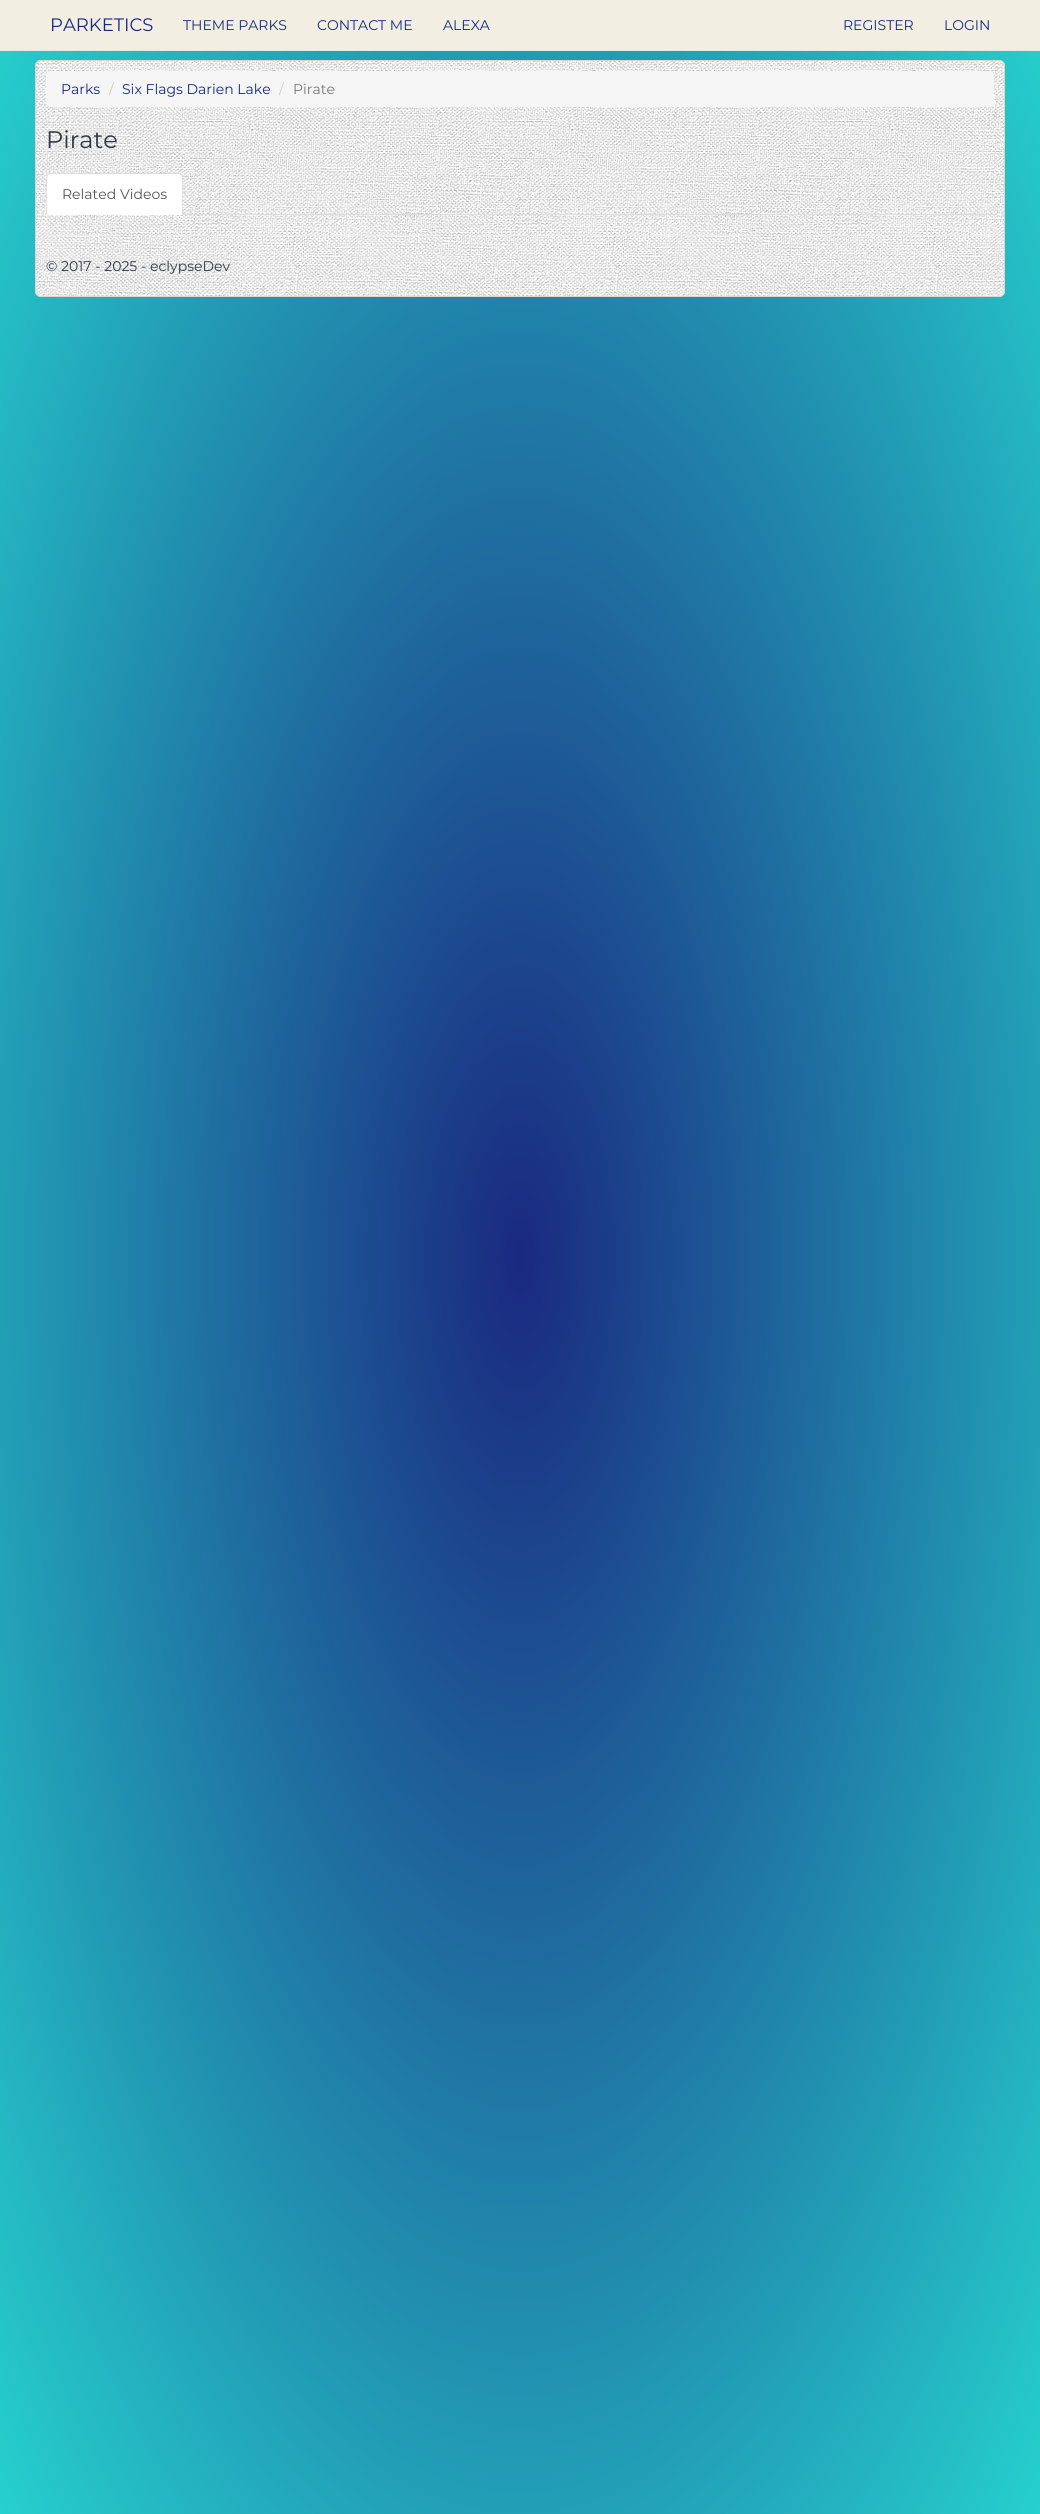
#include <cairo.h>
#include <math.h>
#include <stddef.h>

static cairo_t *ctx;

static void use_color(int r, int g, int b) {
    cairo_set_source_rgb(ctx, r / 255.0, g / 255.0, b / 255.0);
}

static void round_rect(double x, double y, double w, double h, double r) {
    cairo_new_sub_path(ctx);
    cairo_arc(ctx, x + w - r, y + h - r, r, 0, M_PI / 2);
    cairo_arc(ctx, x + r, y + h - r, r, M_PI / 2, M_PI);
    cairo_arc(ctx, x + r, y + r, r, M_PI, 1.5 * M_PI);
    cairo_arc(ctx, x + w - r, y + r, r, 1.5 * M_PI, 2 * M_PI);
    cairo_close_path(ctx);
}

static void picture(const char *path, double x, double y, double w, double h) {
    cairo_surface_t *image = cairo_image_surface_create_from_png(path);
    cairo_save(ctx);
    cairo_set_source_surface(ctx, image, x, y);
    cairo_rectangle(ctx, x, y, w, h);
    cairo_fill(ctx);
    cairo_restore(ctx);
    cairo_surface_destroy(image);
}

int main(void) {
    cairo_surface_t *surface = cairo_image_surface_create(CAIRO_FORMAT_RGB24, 1040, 2514);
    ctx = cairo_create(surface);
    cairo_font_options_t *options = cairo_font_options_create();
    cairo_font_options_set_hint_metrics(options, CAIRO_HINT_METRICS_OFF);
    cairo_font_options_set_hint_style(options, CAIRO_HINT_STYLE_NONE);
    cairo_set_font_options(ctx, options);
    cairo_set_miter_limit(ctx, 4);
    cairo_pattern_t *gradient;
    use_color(255, 255, 255);
    cairo_paint(ctx);
    gradient = cairo_pattern_create_radial(0, 0, 0, 0, 0, 1);
    cairo_pattern_set_matrix(gradient, &(cairo_matrix_t){1.0 / 735, 0, 0, 1.0 / 1778, -1.0 * 520 / 735, -1.0 * 1257 / 1778});
    cairo_pattern_add_color_stop_rgba(gradient, 0, 0.102, 0.161, 0.502, 1);
    cairo_pattern_add_color_stop_rgba(gradient, 1, 0.149, 0.816, 0.808, 1);
    cairo_set_source(ctx, gradient);
    cairo_pattern_destroy(gradient);
    cairo_rectangle(ctx, 0, 51, 1040, 2463);
    cairo_fill(ctx);
    use_color(242, 238, 226);
    cairo_rectangle(ctx, 0, 0, 1040, 50);
    cairo_fill(ctx);
    use_color(231, 231, 231);
    cairo_rectangle(ctx, 0, 50, 1040, 1);
    cairo_fill(ctx);
    cairo_select_font_face(ctx, "Montserrat", CAIRO_FONT_SLANT_NORMAL, CAIRO_FONT_WEIGHT_NORMAL);
    cairo_set_font_size(ctx, 18);
    use_color(26, 41, 128);
    cairo_move_to(ctx, 50, 31);
    cairo_show_text(ctx, "PARKETICS");
    cairo_set_font_size(ctx, 14);
    cairo_move_to(ctx, 183, 30);
    cairo_show_text(ctx, "THEME PARKS");
    cairo_move_to(ctx, 317, 30);
    cairo_show_text(ctx, "CONTACT ME");
    cairo_move_to(ctx, 443, 30);
    cairo_show_text(ctx, "ALEXA");
    cairo_move_to(ctx, 843, 30);
    cairo_show_text(ctx, "REGISTER");
    cairo_move_to(ctx, 944, 30);
    cairo_show_text(ctx, "LOGIN");
    use_color(255, 255, 255);
    round_rect(35, 60, 970, 237, 6);
    cairo_fill(ctx);
    picture("img1.png", 35, 60, 970, 237);
    round_rect(35.5, 60.5, 969, 236, 5.5);
    use_color(221, 215, 197);
    cairo_set_line_width(ctx, 1);
    cairo_stroke(ctx);
    use_color(245, 245, 245);
    round_rect(46, 71, 948, 36, 4);
    cairo_fill(ctx);
    use_color(26, 41, 128);
    cairo_move_to(ctx, 61, 94);
    cairo_show_text(ctx, "Parks");
    use_color(204, 204, 204);
    cairo_move_to(ctx, 109, 94);
    cairo_show_text(ctx, "/");
    use_color(26, 41, 128);
    cairo_move_to(ctx, 122, 94);
    cairo_show_text(ctx, "Six Flags Darien Lake");
    use_color(204, 204, 204);
    cairo_move_to(ctx, 279, 94);
    cairo_show_text(ctx, "/");
    use_color(119, 119, 119);
    cairo_move_to(ctx, 293, 94);
    cairo_show_text(ctx, "Pirate");
    cairo_set_font_size(ctx, 24);
    use_color(50, 52, 66);
    cairo_move_to(ctx, 46, 148);
    cairo_show_text(ctx, "Pirate");
    use_color(221, 221, 221);
    cairo_rectangle(ctx, 183, 214, 811, 1);
    cairo_fill(ctx);
    use_color(255, 255, 255);
    cairo_new_path(ctx);
    cairo_move_to(ctx, 50, 173);
    cairo_line_to(ctx, 179, 173);
    cairo_curve_to(ctx, 181, 173, 183, 175, 183, 177);
    cairo_line_to(ctx, 183, 215);
    cairo_line_to(ctx, 46, 215);
    cairo_line_to(ctx, 46, 177);
    cairo_curve_to(ctx, 46, 175, 48, 173, 50, 173);
    cairo_close_path(ctx);
    cairo_fill(ctx);
    use_color(221, 221, 221);
    cairo_new_path(ctx);
    cairo_move_to(ctx, 50, 173);
    cairo_line_to(ctx, 47, 174);
    cairo_line_to(ctx, 48, 175);
    cairo_line_to(ctx, 50, 174);
    cairo_line_to(ctx, 179, 174);
    cairo_line_to(ctx, 181, 175);
    cairo_line_to(ctx, 182, 174);
    cairo_line_to(ctx, 179, 173);
    cairo_close_path(ctx);
    cairo_fill(ctx);
    cairo_new_path(ctx);
    cairo_move_to(ctx, 183, 215);
    cairo_line_to(ctx, 183, 177);
    cairo_curve_to(ctx, 183, 176, 182, 175, 182, 174);
    cairo_line_to(ctx, 181, 175);
    cairo_curve_to(ctx, 183, 177, 182, 209, 182, 214);
    cairo_close_path(ctx);
    cairo_fill(ctx);
    cairo_new_path(ctx);
    cairo_move_to(ctx, 46, 215);
    cairo_line_to(ctx, 47, 214);
    cairo_curve_to(ctx, 47, 209, 46, 177, 48, 175);
    cairo_line_to(ctx, 47, 174);
    cairo_line_to(ctx, 46, 177);
    cairo_close_path(ctx);
    cairo_fill(ctx);
    cairo_set_font_size(ctx, 14);
    use_color(85, 85, 85);
    cairo_move_to(ctx, 62, 199);
    cairo_show_text(ctx, "Related Videos");
    use_color(238, 238, 238);
    cairo_rectangle(ctx, 46, 235, 948, 1);
    cairo_fill(ctx);
    use_color(50, 52, 66);
    cairo_move_to(ctx, 46, 271);
    cairo_show_text(ctx, "© 2017 - 2025 - eclypseDev");
    cairo_surface_write_to_png(surface, "result.png");
    cairo_font_options_destroy(options);
    cairo_destroy(ctx);
    cairo_surface_destroy(surface);
    return 0;
}
